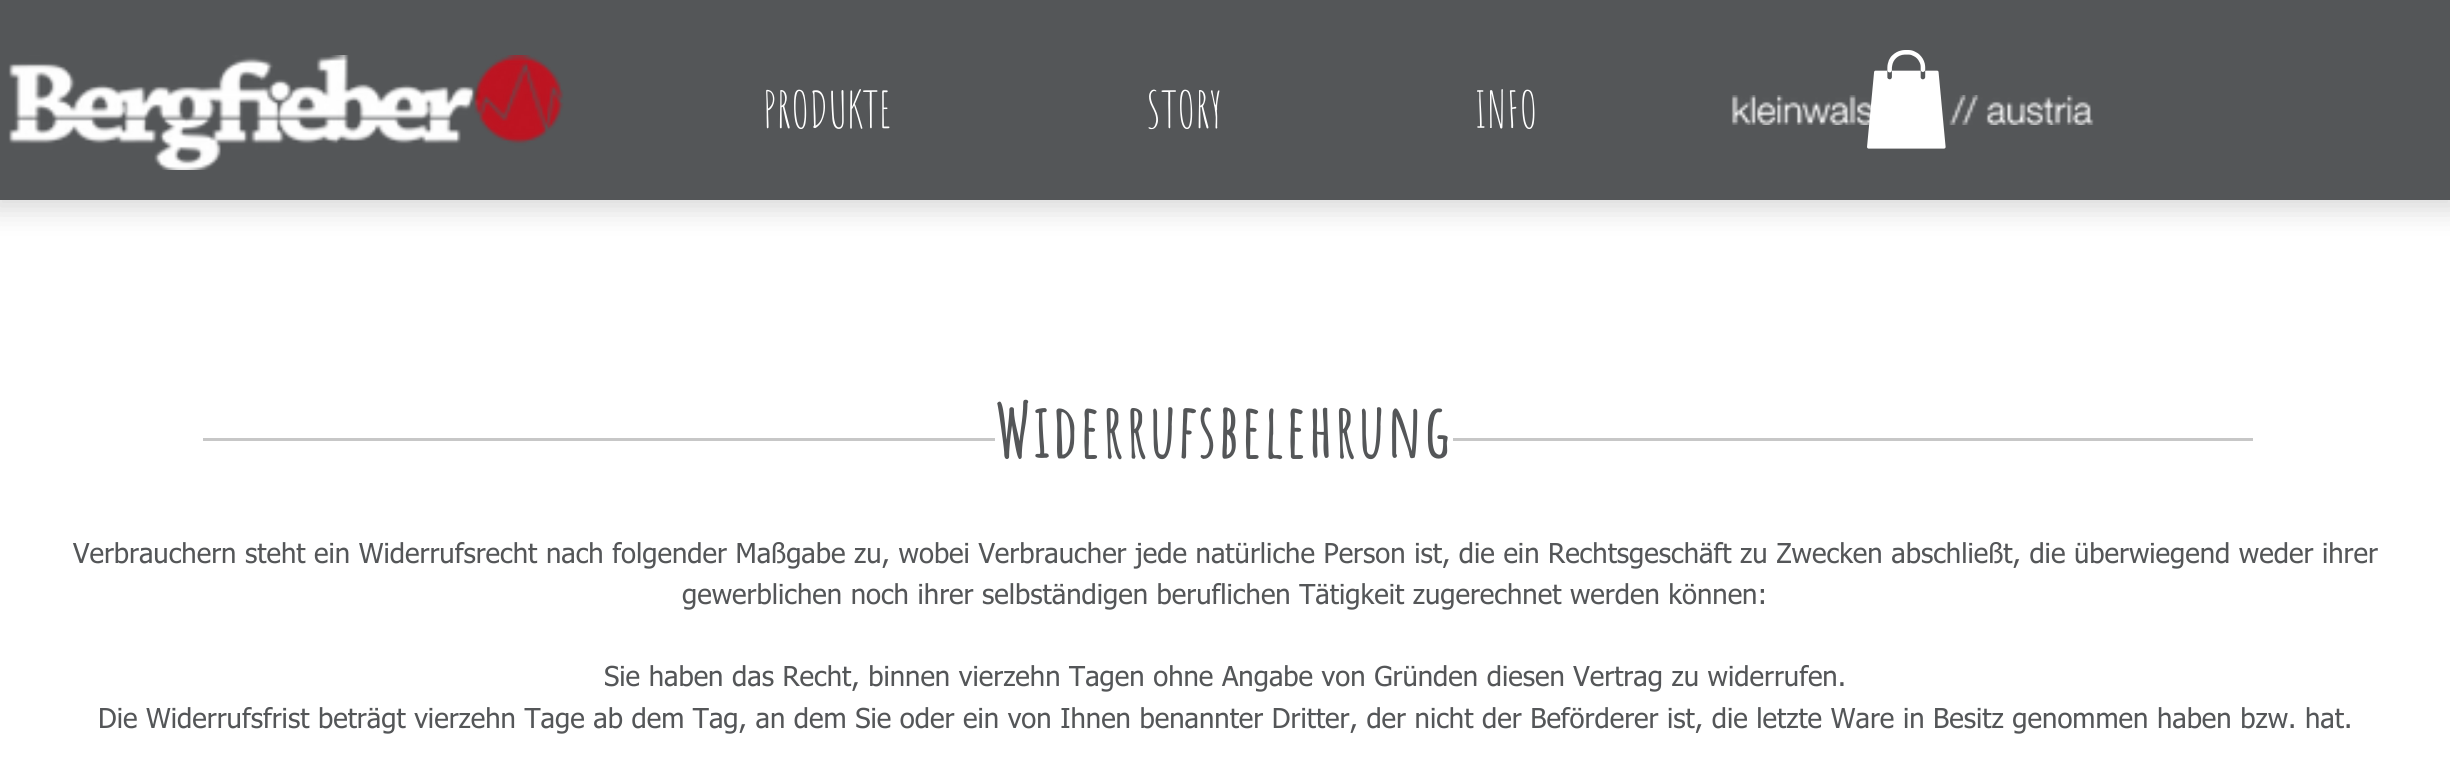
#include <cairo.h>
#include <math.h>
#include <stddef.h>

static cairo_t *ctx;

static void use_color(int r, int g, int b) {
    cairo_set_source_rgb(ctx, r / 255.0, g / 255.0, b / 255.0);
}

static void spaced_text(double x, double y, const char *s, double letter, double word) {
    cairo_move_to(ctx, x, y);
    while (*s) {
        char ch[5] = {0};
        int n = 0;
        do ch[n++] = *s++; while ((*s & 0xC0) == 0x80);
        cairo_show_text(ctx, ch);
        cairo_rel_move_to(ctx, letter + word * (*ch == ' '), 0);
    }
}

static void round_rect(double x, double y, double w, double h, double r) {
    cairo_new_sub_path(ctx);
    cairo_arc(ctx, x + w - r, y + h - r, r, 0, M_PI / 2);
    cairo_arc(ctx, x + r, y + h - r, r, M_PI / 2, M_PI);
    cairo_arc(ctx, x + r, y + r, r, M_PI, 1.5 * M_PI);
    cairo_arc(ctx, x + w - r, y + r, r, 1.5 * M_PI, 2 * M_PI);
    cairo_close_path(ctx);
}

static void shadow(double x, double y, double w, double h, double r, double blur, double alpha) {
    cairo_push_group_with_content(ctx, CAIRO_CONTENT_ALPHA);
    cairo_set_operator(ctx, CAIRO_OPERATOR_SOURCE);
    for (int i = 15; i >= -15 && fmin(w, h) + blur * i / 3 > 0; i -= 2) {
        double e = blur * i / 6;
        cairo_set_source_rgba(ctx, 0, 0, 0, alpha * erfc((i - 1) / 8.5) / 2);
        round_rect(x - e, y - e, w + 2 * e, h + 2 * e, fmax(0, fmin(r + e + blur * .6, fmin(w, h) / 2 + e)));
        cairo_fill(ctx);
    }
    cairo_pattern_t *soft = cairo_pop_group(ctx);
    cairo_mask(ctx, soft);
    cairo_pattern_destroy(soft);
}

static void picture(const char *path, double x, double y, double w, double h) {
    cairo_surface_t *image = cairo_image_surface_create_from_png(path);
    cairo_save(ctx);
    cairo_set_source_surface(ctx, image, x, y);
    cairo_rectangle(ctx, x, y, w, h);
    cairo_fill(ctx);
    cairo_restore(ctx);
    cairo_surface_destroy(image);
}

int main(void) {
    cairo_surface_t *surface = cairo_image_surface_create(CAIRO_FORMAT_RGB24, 2450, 759);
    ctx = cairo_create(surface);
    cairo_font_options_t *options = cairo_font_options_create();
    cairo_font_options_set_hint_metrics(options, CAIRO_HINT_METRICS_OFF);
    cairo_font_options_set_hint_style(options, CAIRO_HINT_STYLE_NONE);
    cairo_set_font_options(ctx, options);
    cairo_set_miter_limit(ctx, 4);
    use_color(255, 255, 255);
    cairo_paint(ctx);
    use_color(0, 0, 0);
    shadow(-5, 0, 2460, 210, 0, 14, 0.15);
    use_color(84, 86, 88);
    cairo_rectangle(ctx, 0, 0, 2450, 200);
    cairo_fill(ctx);
    picture("img1.png", 8, 55, 556, 115);
    picture("img2.png", 1731, 95, 363, 30);
    cairo_select_font_face(ctx, "Amatic SC", CAIRO_FONT_SLANT_NORMAL, CAIRO_FONT_WEIGHT_NORMAL);
    cairo_set_font_size(ctx, 50);
    use_color(255, 255, 255);
    cairo_move_to(ctx, 763, 128);
    cairo_show_text(ctx, "PRODUKTE");
    cairo_move_to(ctx, 1146, 128);
    cairo_show_text(ctx, "STORY");
    cairo_move_to(ctx, 1474, 128);
    cairo_show_text(ctx, "INFO");
    picture("img3.png", 1867, 50, 79, 99);
    use_color(199, 199, 199);
    cairo_rectangle(ctx, 203, 438, 2050, 3);
    cairo_fill(ctx);
    use_color(255, 255, 255);
    cairo_rectangle(ctx, 995, 438, 458, 3);
    cairo_fill(ctx);
    cairo_select_font_face(ctx, "Amatic SC", CAIRO_FONT_SLANT_NORMAL, CAIRO_FONT_WEIGHT_BOLD);
    cairo_set_font_size(ctx, 75);
    use_color(84, 86, 88);
    spaced_text(995, 458, "Widerrufsbelehrung", 1.5, 0);
    cairo_select_font_face(ctx, "tahoma", CAIRO_FONT_SLANT_NORMAL, CAIRO_FONT_WEIGHT_NORMAL);
    cairo_set_font_size(ctx, 27.5);
    cairo_move_to(ctx, 73, 563);
    cairo_show_text(ctx, "Verbrauchern steht ein Widerrufsrecht nach folgender Maßgabe zu, wobei Verbraucher jede natürliche Person ist, die ein Rechtsgeschäft zu Zwecken abschließt, die überwiegend weder ihrer");
    cairo_move_to(ctx, 682, 604);
    cairo_show_text(ctx, "gewerblichen noch ihrer selbständigen beruflichen Tätigkeit zugerechnet werden können:");
    cairo_move_to(ctx, 604, 686);
    cairo_show_text(ctx, "Sie haben das Recht, binnen vierzehn Tagen ohne Angabe von Gründen diesen Vertrag zu widerrufen.");
    cairo_move_to(ctx, 98, 728);
    cairo_show_text(ctx, "Die Widerrufsfrist beträgt vierzehn Tage ab dem Tag, an dem Sie oder ein von Ihnen benannter Dritter, der nicht der Beförderer ist, die letzte Ware in Besitz genommen haben bzw. hat.");
    cairo_surface_write_to_png(surface, "result.png");
    cairo_font_options_destroy(options);
    cairo_destroy(ctx);
    cairo_surface_destroy(surface);
    return 0;
}
